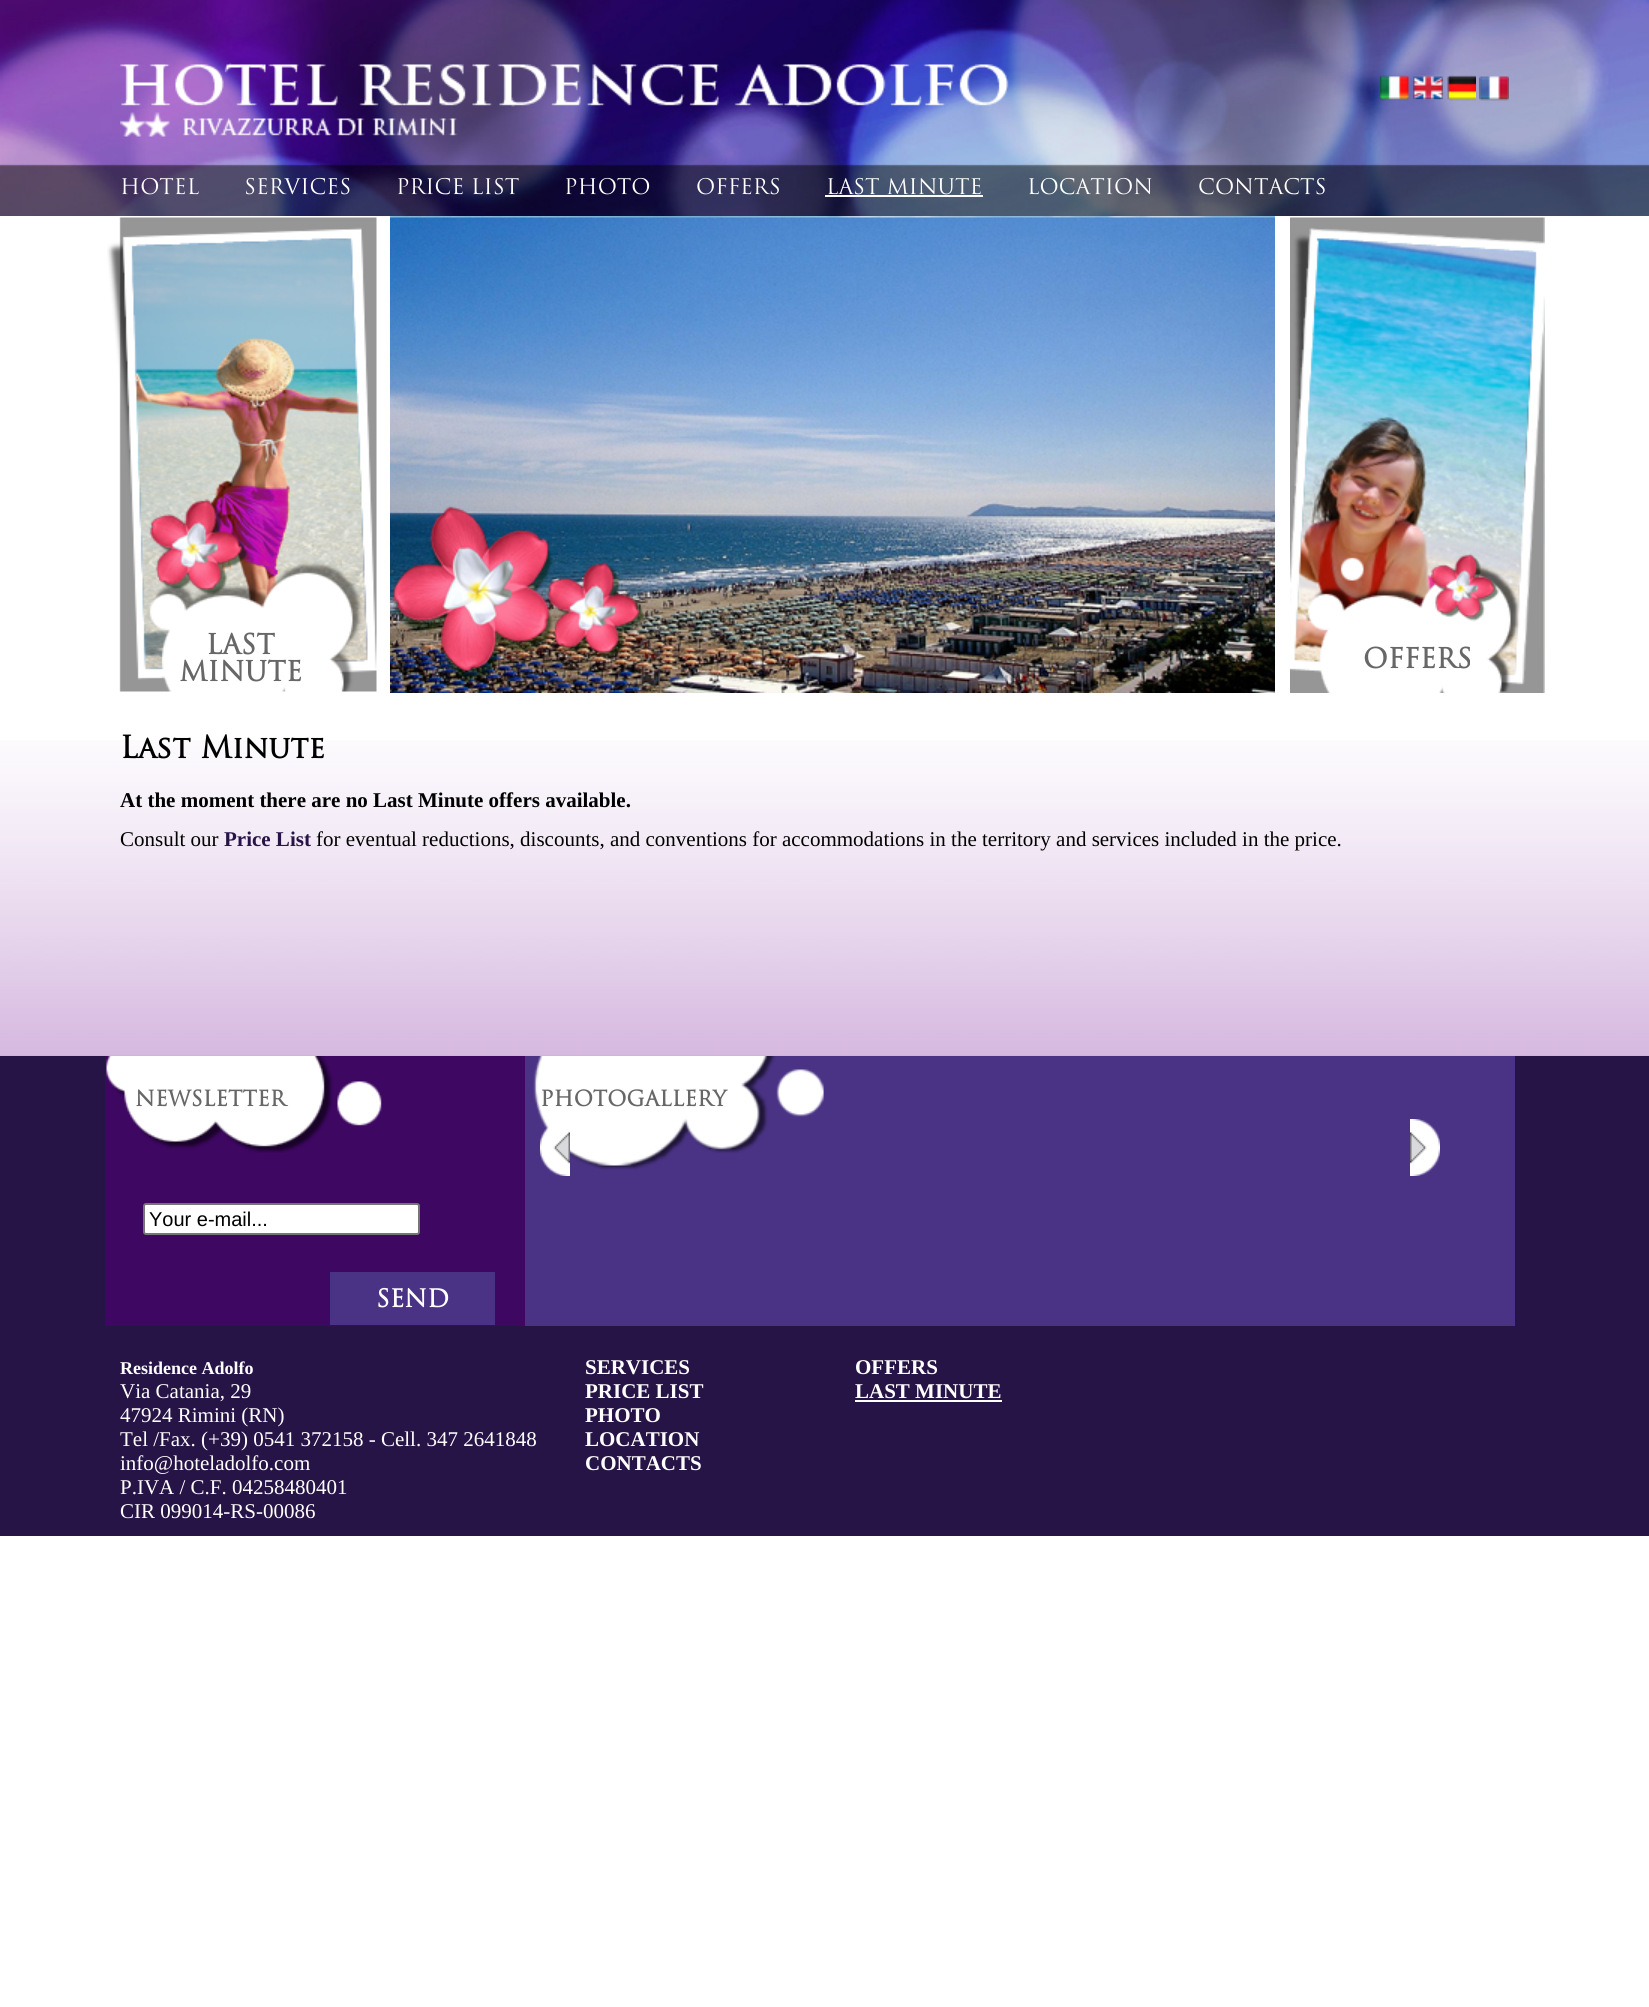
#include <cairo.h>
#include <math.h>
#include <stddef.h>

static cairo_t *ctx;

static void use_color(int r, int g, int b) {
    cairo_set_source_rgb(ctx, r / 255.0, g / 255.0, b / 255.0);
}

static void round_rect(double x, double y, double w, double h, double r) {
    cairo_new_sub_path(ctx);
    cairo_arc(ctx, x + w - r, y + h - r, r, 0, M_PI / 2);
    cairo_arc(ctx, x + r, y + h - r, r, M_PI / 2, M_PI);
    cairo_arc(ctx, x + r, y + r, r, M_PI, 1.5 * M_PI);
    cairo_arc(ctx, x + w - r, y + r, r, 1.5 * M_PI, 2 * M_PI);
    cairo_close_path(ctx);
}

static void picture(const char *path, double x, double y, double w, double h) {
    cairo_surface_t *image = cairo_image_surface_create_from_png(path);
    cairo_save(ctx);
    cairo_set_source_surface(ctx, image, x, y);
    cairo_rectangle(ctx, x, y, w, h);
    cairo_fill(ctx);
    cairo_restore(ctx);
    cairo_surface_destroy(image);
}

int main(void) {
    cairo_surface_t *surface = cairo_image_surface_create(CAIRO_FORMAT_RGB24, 1649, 2007);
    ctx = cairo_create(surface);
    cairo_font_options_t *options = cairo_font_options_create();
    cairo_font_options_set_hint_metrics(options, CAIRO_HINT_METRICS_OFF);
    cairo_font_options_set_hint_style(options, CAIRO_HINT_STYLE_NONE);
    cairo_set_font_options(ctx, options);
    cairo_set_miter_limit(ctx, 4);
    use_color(255, 255, 255);
    cairo_paint(ctx);
    picture("img1.png", 0, 0, 1649, 216);
    picture("img2.png", 120, 63, 889, 74);
    picture("img3.png", 1380, 75, 29, 26);
    picture("img4.png", 1413, 75, 30, 25);
    picture("img5.png", 1447, 75, 29, 26);
    picture("img6.png", 1479, 76, 30, 25);
    cairo_select_font_face(ctx, "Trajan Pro", CAIRO_FONT_SLANT_NORMAL, CAIRO_FONT_WEIGHT_NORMAL);
    cairo_set_font_size(ctx, 21);
    use_color(255, 255, 255);
    cairo_move_to(ctx, 120, 194);
    cairo_show_text(ctx, "HOTEL");
    cairo_move_to(ctx, 244, 194);
    cairo_show_text(ctx, "SERVICES");
    cairo_move_to(ctx, 396, 194);
    cairo_show_text(ctx, "PRICE LIST");
    cairo_move_to(ctx, 564, 194);
    cairo_show_text(ctx, "PHOTO");
    cairo_move_to(ctx, 696, 194);
    cairo_show_text(ctx, "OFFERS");
    cairo_move_to(ctx, 826, 194);
    cairo_show_text(ctx, "LAST MINUTE");
    cairo_rectangle(ctx, 825, 195, 158, 2);
    cairo_fill(ctx);
    cairo_move_to(ctx, 1027, 194);
    cairo_show_text(ctx, "LOCATION");
    cairo_move_to(ctx, 1198, 194);
    cairo_show_text(ctx, "CONTACTS");
    picture("img7.png", 0, 740, 1649, 316);
    picture("img8.png", 107, 217, 270, 475);
    cairo_select_font_face(ctx, "Trajan Pro", CAIRO_FONT_SLANT_NORMAL, CAIRO_FONT_WEIGHT_BOLD);
    cairo_set_font_size(ctx, 27);
    use_color(103, 103, 103);
    cairo_move_to(ctx, 206, 654);
    cairo_show_text(ctx, "LAST");
    cairo_move_to(ctx, 179, 681);
    cairo_show_text(ctx, "MINUTE");
    picture("img9.png", 390, 216, 885, 477);
    picture("img10.png", 392, 506, 253, 176);
    picture("img11.png", 1290, 217, 255, 476);
    cairo_move_to(ctx, 1363, 668);
    cairo_show_text(ctx, "OFFERS");
    cairo_set_font_size(ctx, 30);
    use_color(0, 0, 0);
    cairo_move_to(ctx, 120, 758);
    cairo_show_text(ctx, "Last Minute");
    cairo_select_font_face(ctx, "Liberation Serif", CAIRO_FONT_SLANT_NORMAL, CAIRO_FONT_WEIGHT_BOLD);
    cairo_set_font_size(ctx, 21);
    cairo_move_to(ctx, 120, 807);
    cairo_show_text(ctx, "At the moment there are no Last Minute offers available.");
    cairo_select_font_face(ctx, "Liberation Serif", CAIRO_FONT_SLANT_NORMAL, CAIRO_FONT_WEIGHT_NORMAL);
    cairo_move_to(ctx, 120, 846);
    cairo_show_text(ctx, "Consult our");
    cairo_select_font_face(ctx, "Liberation Serif", CAIRO_FONT_SLANT_NORMAL, CAIRO_FONT_WEIGHT_BOLD);
    use_color(39, 20, 70);
    cairo_move_to(ctx, 224, 846);
    cairo_show_text(ctx, "Price List");
    cairo_select_font_face(ctx, "Liberation Serif", CAIRO_FONT_SLANT_NORMAL, CAIRO_FONT_WEIGHT_NORMAL);
    use_color(0, 0, 0);
    cairo_move_to(ctx, 316, 846);
    cairo_show_text(ctx, "for eventual reductions, discounts, and conventions for accommodations in the territory and services included in the price.");
    use_color(39, 20, 70);
    cairo_rectangle(ctx, 0, 1056, 1649, 480);
    cairo_fill(ctx);
    use_color(62, 7, 98);
    cairo_rectangle(ctx, 105, 1056, 420, 270);
    cairo_fill(ctx);
    picture("img12.png", 106, 1056, 276, 97);
    cairo_select_font_face(ctx, "Trajan Pro", CAIRO_FONT_SLANT_NORMAL, CAIRO_FONT_WEIGHT_BOLD);
    use_color(103, 103, 103);
    cairo_move_to(ctx, 135, 1106);
    cairo_show_text(ctx, "NEWSLETTER");
    use_color(255, 255, 255);
    round_rect(144, 1204, 275, 30, 2);
    cairo_fill_preserve(ctx);
    use_color(118, 118, 118);
    cairo_stroke(ctx);
    cairo_select_font_face(ctx, "Liberation Sans", CAIRO_FONT_SLANT_NORMAL, CAIRO_FONT_WEIGHT_NORMAL);
    cairo_set_font_size(ctx, 20);
    use_color(0, 0, 0);
    cairo_move_to(ctx, 149, 1226);
    cairo_show_text(ctx, "Your e-mail...");
    use_color(74, 51, 133);
    cairo_rectangle(ctx, 330, 1272, 165, 53);
    cairo_fill(ctx);
    cairo_select_font_face(ctx, "Trajan Pro", CAIRO_FONT_SLANT_NORMAL, CAIRO_FONT_WEIGHT_BOLD);
    cairo_set_font_size(ctx, 24);
    use_color(255, 255, 255);
    cairo_move_to(ctx, 376, 1307);
    cairo_show_text(ctx, "SEND");
    use_color(74, 51, 133);
    cairo_rectangle(ctx, 525, 1056, 990, 270);
    cairo_fill(ctx);
    picture("img13.png", 533, 1056, 291, 114);
    cairo_set_font_size(ctx, 21);
    use_color(103, 103, 103);
    cairo_move_to(ctx, 540, 1106);
    cairo_show_text(ctx, "PHOTOGALLERY");
    picture("img14.png", 540, 1126, 30, 50);
    picture("img15.png", 1410, 1119, 30, 57);
    cairo_select_font_face(ctx, "Liberation Serif", CAIRO_FONT_SLANT_NORMAL, CAIRO_FONT_WEIGHT_BOLD);
    cairo_set_font_size(ctx, 18);
    use_color(255, 255, 255);
    cairo_move_to(ctx, 120, 1374);
    cairo_show_text(ctx, "Residence Adolfo");
    cairo_select_font_face(ctx, "Liberation Serif", CAIRO_FONT_SLANT_NORMAL, CAIRO_FONT_WEIGHT_NORMAL);
    cairo_set_font_size(ctx, 21);
    cairo_move_to(ctx, 120, 1398);
    cairo_show_text(ctx, "Via Catania, 29");
    cairo_move_to(ctx, 120, 1422);
    cairo_show_text(ctx, "47924 Rimini (RN)");
    cairo_move_to(ctx, 120, 1446);
    cairo_show_text(ctx, "Tel /Fax. (+39) 0541 372158 - Cell. 347 2641848");
    cairo_move_to(ctx, 120, 1470);
    cairo_show_text(ctx, "info@hoteladolfo.com");
    cairo_move_to(ctx, 120, 1494);
    cairo_show_text(ctx, "P.IVA / C.F. 04258480401");
    cairo_move_to(ctx, 120, 1518);
    cairo_show_text(ctx, "CIR 099014-RS-00086");
    cairo_select_font_face(ctx, "Liberation Serif", CAIRO_FONT_SLANT_NORMAL, CAIRO_FONT_WEIGHT_BOLD);
    cairo_move_to(ctx, 585, 1374);
    cairo_show_text(ctx, "SERVICES");
    cairo_move_to(ctx, 585, 1398);
    cairo_show_text(ctx, "PRICE LIST");
    cairo_move_to(ctx, 585, 1422);
    cairo_show_text(ctx, "PHOTO");
    cairo_move_to(ctx, 585, 1446);
    cairo_show_text(ctx, "LOCATION");
    cairo_move_to(ctx, 585, 1470);
    cairo_show_text(ctx, "CONTACTS");
    cairo_move_to(ctx, 855, 1374);
    cairo_show_text(ctx, "OFFERS");
    cairo_move_to(ctx, 855, 1398);
    cairo_show_text(ctx, "LAST MINUTE");
    cairo_rectangle(ctx, 855, 1400, 147, 2);
    cairo_fill(ctx);
    cairo_surface_write_to_png(surface, "result.png");
    cairo_font_options_destroy(options);
    cairo_destroy(ctx);
    cairo_surface_destroy(surface);
    return 0;
}
